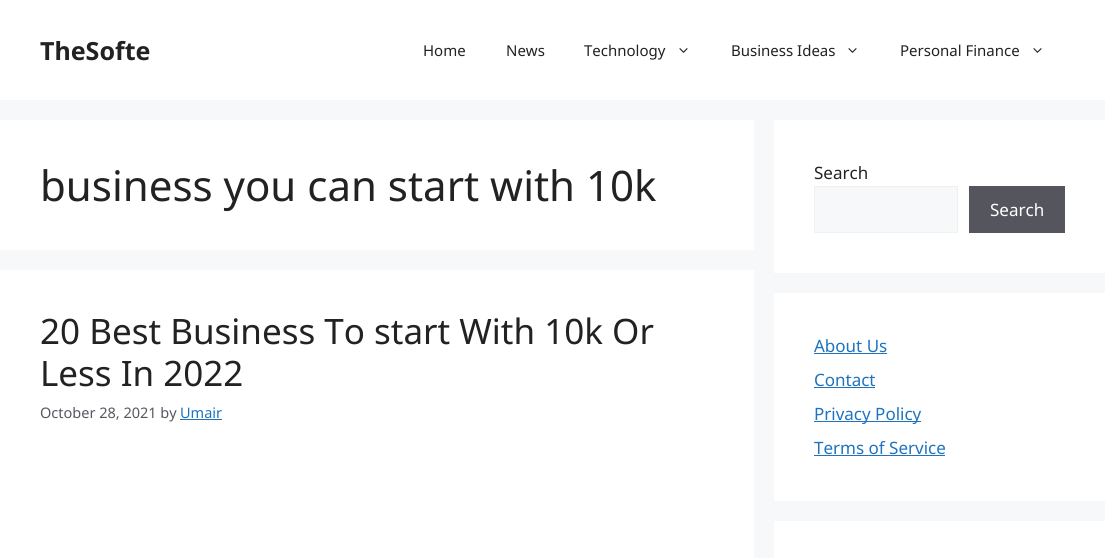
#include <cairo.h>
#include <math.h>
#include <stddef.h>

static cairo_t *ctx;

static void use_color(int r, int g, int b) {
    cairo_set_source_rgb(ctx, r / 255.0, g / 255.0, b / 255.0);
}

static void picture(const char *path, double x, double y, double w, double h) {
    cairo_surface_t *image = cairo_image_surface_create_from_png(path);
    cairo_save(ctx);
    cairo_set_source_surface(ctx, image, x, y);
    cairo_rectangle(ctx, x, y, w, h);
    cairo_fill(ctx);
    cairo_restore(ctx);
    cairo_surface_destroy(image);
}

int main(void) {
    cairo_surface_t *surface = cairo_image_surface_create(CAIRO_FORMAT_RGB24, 1105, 558);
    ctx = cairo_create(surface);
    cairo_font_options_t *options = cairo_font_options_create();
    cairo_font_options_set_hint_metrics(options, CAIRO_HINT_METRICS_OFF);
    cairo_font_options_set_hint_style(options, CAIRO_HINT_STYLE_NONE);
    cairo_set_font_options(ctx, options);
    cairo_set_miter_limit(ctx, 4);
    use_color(247, 248, 249);
    cairo_paint(ctx);
    use_color(255, 255, 255);
    cairo_rectangle(ctx, 0, 0, 1105, 100);
    cairo_fill(ctx);
    cairo_select_font_face(ctx, "Noto Sans", CAIRO_FONT_SLANT_NORMAL, CAIRO_FONT_WEIGHT_BOLD);
    cairo_set_font_size(ctx, 25);
    use_color(34, 34, 34);
    cairo_move_to(ctx, 40, 60);
    cairo_show_text(ctx, "TheSofte");
    cairo_select_font_face(ctx, "Noto Sans", CAIRO_FONT_SLANT_NORMAL, CAIRO_FONT_WEIGHT_NORMAL);
    cairo_set_font_size(ctx, 15);
    cairo_move_to(ctx, 423, 56);
    cairo_show_text(ctx, "Home");
    cairo_move_to(ctx, 506, 56);
    cairo_show_text(ctx, "News");
    cairo_move_to(ctx, 584, 56);
    cairo_show_text(ctx, "Technology");
    picture("img1.png", 679, 48, 9, 5);
    cairo_move_to(ctx, 731, 56);
    cairo_show_text(ctx, "Business Ideas");
    picture("img1.png", 848, 48, 9, 5);
    cairo_move_to(ctx, 900, 56);
    cairo_show_text(ctx, "Personal Finance");
    picture("img1.png", 1033, 48, 9, 5);
    use_color(255, 255, 255);
    cairo_rectangle(ctx, 0, 120, 754, 130);
    cairo_fill(ctx);
    cairo_set_font_size(ctx, 42);
    use_color(34, 34, 34);
    cairo_move_to(ctx, 40, 201);
    cairo_show_text(ctx, "business you can start with 10k");
    use_color(255, 255, 255);
    cairo_rectangle(ctx, 0, 270, 754, 288);
    cairo_fill(ctx);
    cairo_set_font_size(ctx, 35);
    use_color(34, 34, 34);
    cairo_move_to(ctx, 40, 344);
    cairo_show_text(ctx, "20 Best Business To start With 10k Or");
    cairo_move_to(ctx, 40, 386);
    cairo_show_text(ctx, "Less In 2022");
    cairo_set_font_size(ctx, 14.5);
    use_color(87, 87, 96);
    cairo_move_to(ctx, 40, 418);
    cairo_show_text(ctx, "October 28, 2021 by");
    use_color(30, 115, 190);
    cairo_move_to(ctx, 180, 418);
    cairo_show_text(ctx, "Umair");
    cairo_rectangle(ctx, 180, 419, 42, 1);
    cairo_fill(ctx);
    use_color(255, 255, 255);
    cairo_rectangle(ctx, 774, 120, 331, 153);
    cairo_fill(ctx);
    cairo_set_font_size(ctx, 17);
    use_color(34, 34, 34);
    cairo_move_to(ctx, 814, 179);
    cairo_show_text(ctx, "Search");
    use_color(247, 248, 249);
    cairo_rectangle(ctx, 814.5, 186.5, 143, 46);
    cairo_fill_preserve(ctx);
    use_color(240, 240, 240);
    cairo_set_line_width(ctx, 1);
    cairo_stroke(ctx);
    use_color(85, 85, 94);
    cairo_rectangle(ctx, 969, 186, 96, 47);
    cairo_fill(ctx);
    use_color(255, 255, 255);
    cairo_move_to(ctx, 990, 216);
    cairo_show_text(ctx, "Search");
    cairo_rectangle(ctx, 774, 293, 331, 208);
    cairo_fill(ctx);
    use_color(30, 115, 190);
    cairo_move_to(ctx, 814, 352);
    cairo_show_text(ctx, "About Us");
    cairo_rectangle(ctx, 814, 353, 73, 1);
    cairo_fill(ctx);
    cairo_move_to(ctx, 814, 386);
    cairo_show_text(ctx, "Contact");
    cairo_rectangle(ctx, 814, 387, 61, 1);
    cairo_fill(ctx);
    cairo_rectangle(ctx, 814, 421, 107, 1);
    cairo_fill(ctx);
    cairo_move_to(ctx, 814, 420);
    cairo_show_text(ctx, "Privacy Policy");
    cairo_move_to(ctx, 814, 454);
    cairo_show_text(ctx, "Terms of Service");
    cairo_rectangle(ctx, 814, 455, 131, 1);
    cairo_fill(ctx);
    use_color(255, 255, 255);
    cairo_rectangle(ctx, 774, 521, 331, 37);
    cairo_fill(ctx);
    cairo_surface_write_to_png(surface, "result.png");
    cairo_font_options_destroy(options);
    cairo_destroy(ctx);
    cairo_surface_destroy(surface);
    return 0;
}
